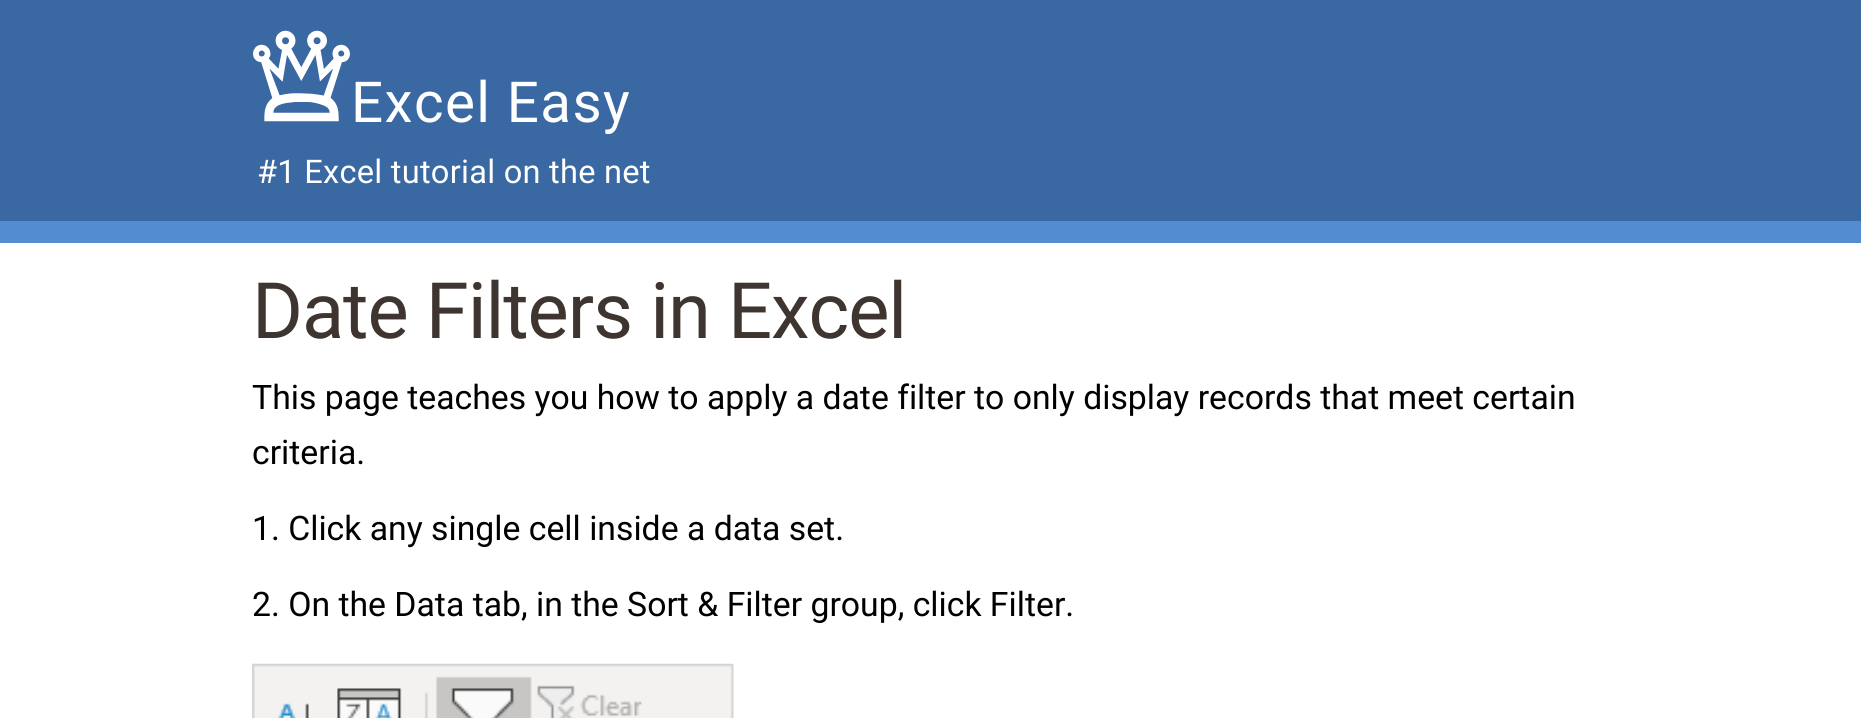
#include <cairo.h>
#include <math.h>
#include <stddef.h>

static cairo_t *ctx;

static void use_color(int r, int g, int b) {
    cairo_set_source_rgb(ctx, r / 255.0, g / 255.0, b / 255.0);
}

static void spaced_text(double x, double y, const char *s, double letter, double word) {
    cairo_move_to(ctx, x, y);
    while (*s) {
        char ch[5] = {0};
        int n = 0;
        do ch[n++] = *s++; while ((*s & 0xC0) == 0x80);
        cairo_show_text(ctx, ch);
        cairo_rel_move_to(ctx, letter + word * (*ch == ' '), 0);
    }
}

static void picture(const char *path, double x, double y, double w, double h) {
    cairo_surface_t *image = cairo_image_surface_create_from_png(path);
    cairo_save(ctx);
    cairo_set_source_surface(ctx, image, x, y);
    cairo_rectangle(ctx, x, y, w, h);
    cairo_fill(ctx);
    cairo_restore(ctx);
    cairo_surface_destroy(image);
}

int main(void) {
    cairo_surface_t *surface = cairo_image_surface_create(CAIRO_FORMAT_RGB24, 1861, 718);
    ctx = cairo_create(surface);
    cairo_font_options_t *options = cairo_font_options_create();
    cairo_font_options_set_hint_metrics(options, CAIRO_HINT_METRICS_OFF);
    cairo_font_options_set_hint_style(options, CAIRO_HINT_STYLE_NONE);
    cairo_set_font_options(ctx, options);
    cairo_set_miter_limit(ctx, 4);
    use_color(255, 255, 255);
    cairo_paint(ctx);
    use_color(57, 104, 162);
    cairo_rectangle(ctx, 0, 0, 1861, 221);
    cairo_fill(ctx);
    use_color(84, 140, 209);
    cairo_rectangle(ctx, 0, 221, 1861, 22);
    cairo_fill(ctx);
    picture("img1.png", 253, 30, 97, 92);
    cairo_select_font_face(ctx, "Roboto", CAIRO_FONT_SLANT_NORMAL, CAIRO_FONT_WEIGHT_NORMAL);
    cairo_set_font_size(ctx, 56.5);
    use_color(255, 255, 255);
    spaced_text(351, 122, "Excel Easy", 1.4, 0);
    cairo_set_font_size(ctx, 32.6);
    spaced_text(257, 183, "#1 Excel tutorial on the net", 0.25, 0);
    cairo_set_font_size(ctx, 77.75);
    use_color(62, 53, 48);
    spaced_text(252, 338, "Date Filters in Excel", -1.1, 0);
    cairo_set_font_size(ctx, 33.75);
    use_color(0, 0, 0);
    cairo_move_to(ctx, 252, 409);
    cairo_show_text(ctx, "This page teaches you how to apply a date filter to only display records that meet certain");
    cairo_move_to(ctx, 252, 464);
    cairo_show_text(ctx, "criteria.");
    cairo_move_to(ctx, 252, 540);
    cairo_show_text(ctx, "1. Click any single cell inside a data set.");
    cairo_move_to(ctx, 252, 616);
    cairo_show_text(ctx, "2. On the Data tab, in the Sort & Filter group, click Filter.");
    picture("img2.png", 252, 663, 482, 55);
    cairo_surface_write_to_png(surface, "result.png");
    cairo_font_options_destroy(options);
    cairo_destroy(ctx);
    cairo_surface_destroy(surface);
    return 0;
}
